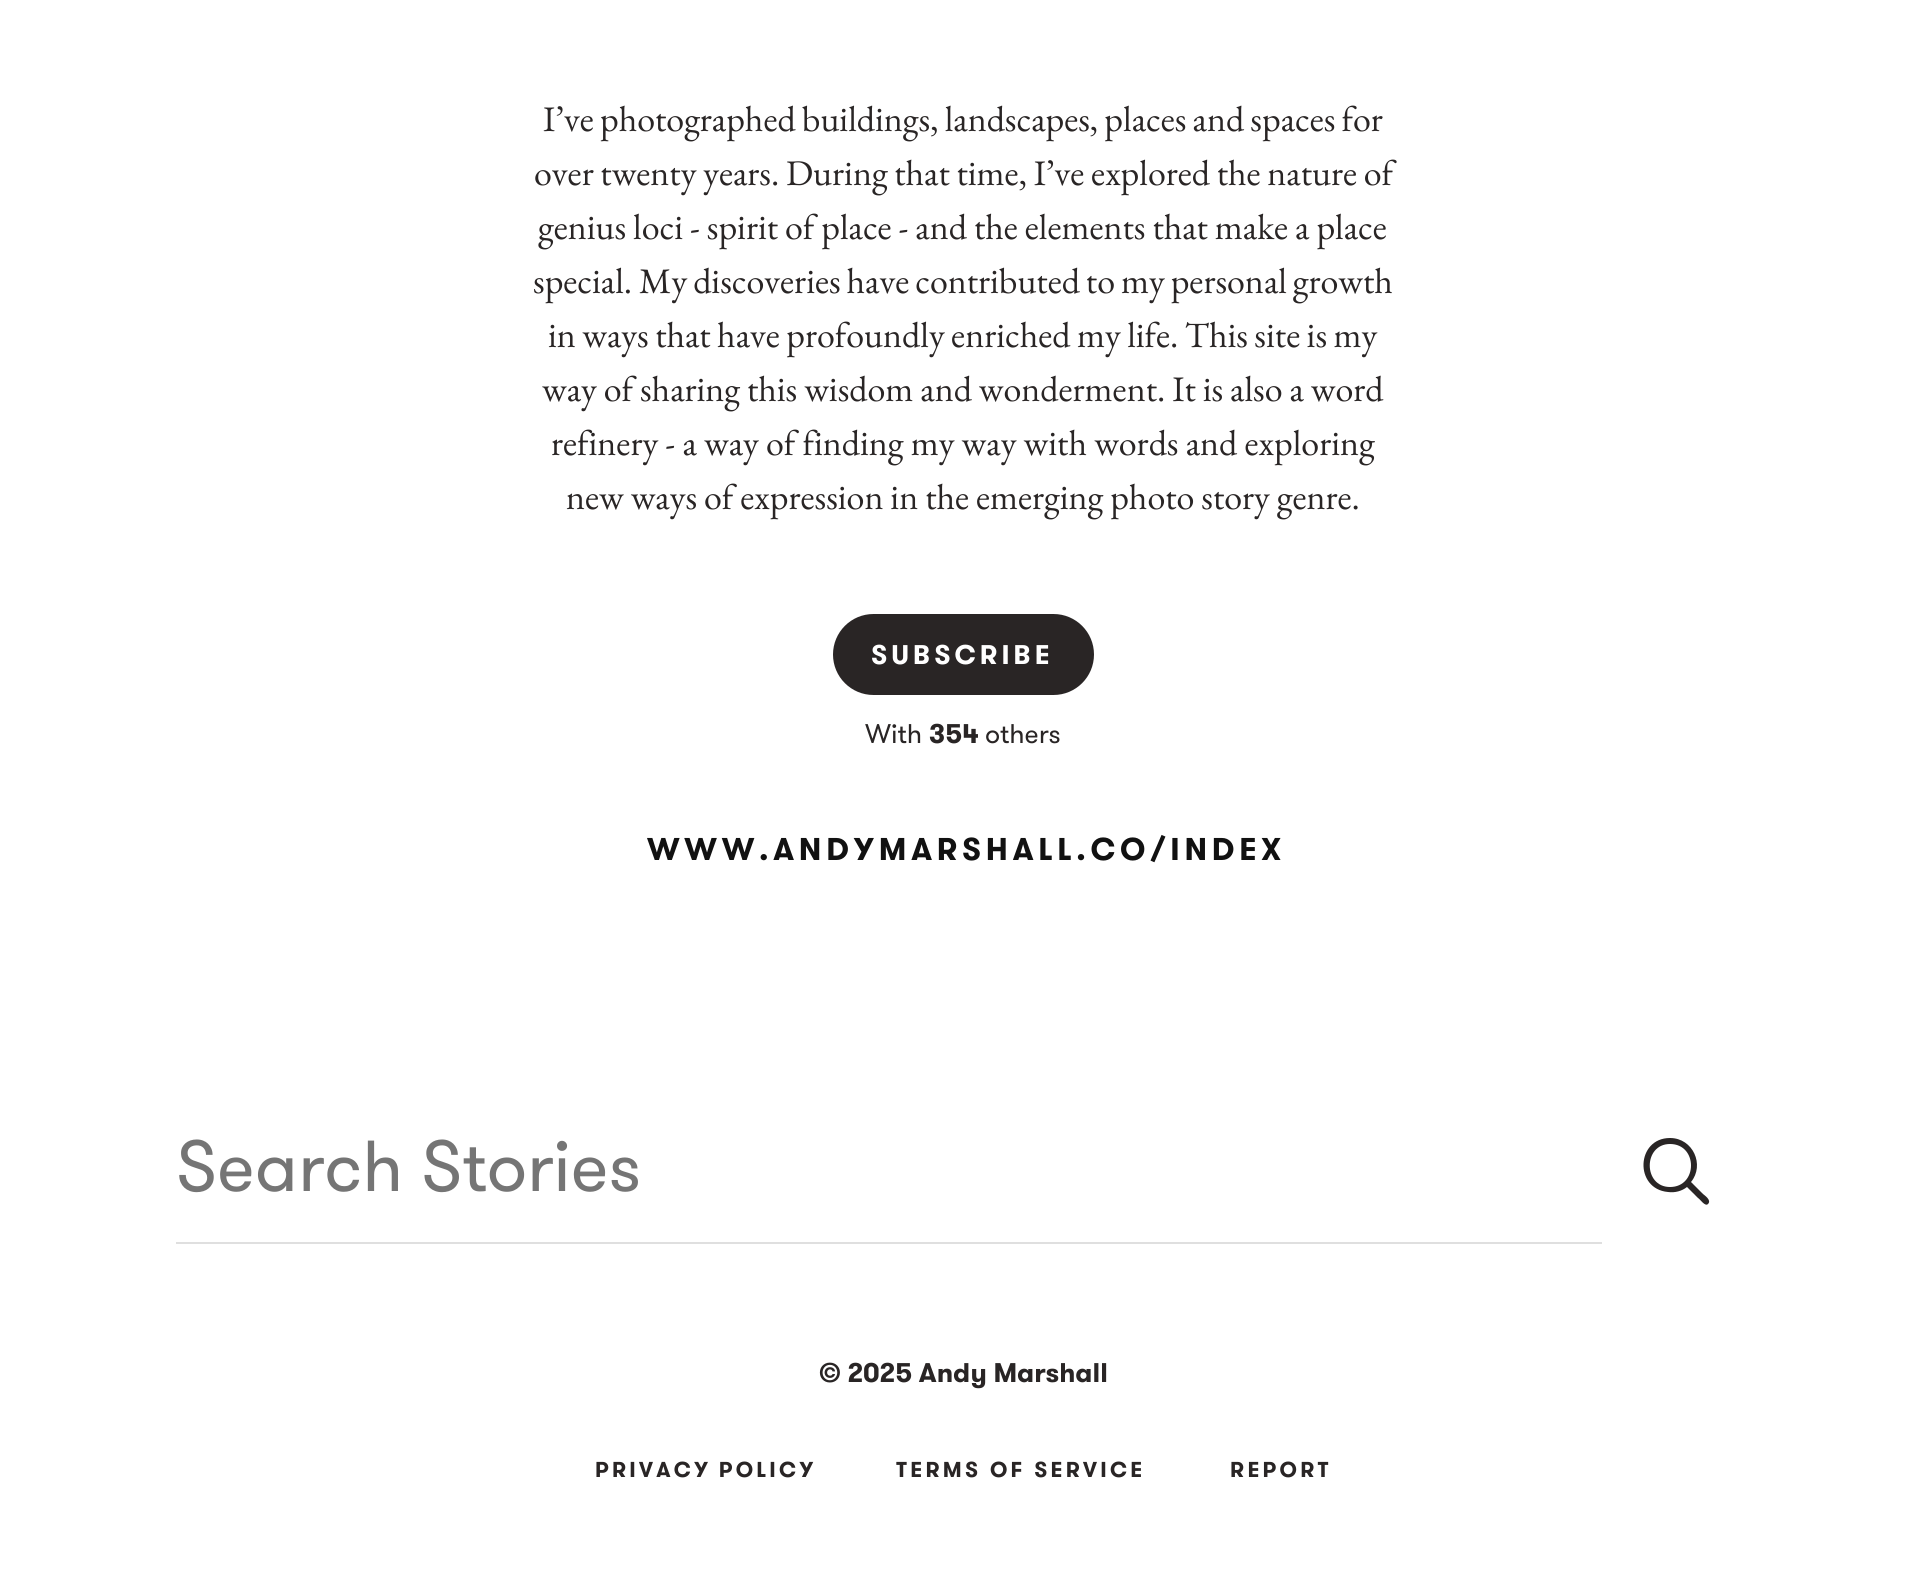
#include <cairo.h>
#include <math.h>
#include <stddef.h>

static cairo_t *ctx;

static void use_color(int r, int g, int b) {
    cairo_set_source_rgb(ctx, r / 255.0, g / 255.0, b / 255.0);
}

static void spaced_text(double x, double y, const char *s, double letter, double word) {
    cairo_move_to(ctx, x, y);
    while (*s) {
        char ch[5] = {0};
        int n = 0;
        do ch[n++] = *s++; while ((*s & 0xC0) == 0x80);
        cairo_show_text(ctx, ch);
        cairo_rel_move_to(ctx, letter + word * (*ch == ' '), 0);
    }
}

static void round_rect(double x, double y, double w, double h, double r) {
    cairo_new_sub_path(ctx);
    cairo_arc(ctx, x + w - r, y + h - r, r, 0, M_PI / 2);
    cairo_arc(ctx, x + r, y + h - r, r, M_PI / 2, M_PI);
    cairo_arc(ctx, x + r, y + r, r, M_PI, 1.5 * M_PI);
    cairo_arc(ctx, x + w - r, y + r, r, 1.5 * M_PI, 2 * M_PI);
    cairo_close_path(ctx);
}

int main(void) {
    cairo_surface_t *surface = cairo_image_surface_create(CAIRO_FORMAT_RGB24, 1926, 1581);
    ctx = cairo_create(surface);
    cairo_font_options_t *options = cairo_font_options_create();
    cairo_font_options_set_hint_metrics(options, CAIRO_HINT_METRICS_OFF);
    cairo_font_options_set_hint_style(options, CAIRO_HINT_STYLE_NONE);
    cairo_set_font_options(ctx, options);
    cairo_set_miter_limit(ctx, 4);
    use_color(255, 255, 255);
    cairo_paint(ctx);
    cairo_select_font_face(ctx, "EB Garamond", CAIRO_FONT_SLANT_NORMAL, CAIRO_FONT_WEIGHT_NORMAL);
    cairo_set_font_size(ctx, 36);
    use_color(41, 37, 37);
    spaced_text(543, 131, "I’ve photographed buildings, landscapes, places and spaces for", 0, -1);
    spaced_text(534, 185, "over twenty years. During that time, I’ve explored the nature of", 0, -0.5);
    spaced_text(538, 239, "genius loci - spirit of place - and the elements that make a place", 0, -0.25);
    cairo_move_to(ctx, 533, 293);
    cairo_show_text(ctx, "special.");
    spaced_text(639, 293, "My discoveries have contributed to my personal growth", 0, -1.25);
    spaced_text(548, 347, "in ways that have profoundly enriched my life. This site is my", 0, -0.75);
    spaced_text(542, 401, "way of sharing this wisdom and wonderment. It is also a word", 0, -0.25);
    cairo_move_to(ctx, 551, 455);
    cairo_show_text(ctx, "refinery - a way of finding my way with words and exploring");
    spaced_text(566, 509, "new ways of expression in the emerging photo story genre.", 0, -0.25);
    round_rect(833, 614, 261, 81, 40.5);
    cairo_fill(ctx);
    cairo_select_font_face(ctx, "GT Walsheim", CAIRO_FONT_SLANT_NORMAL, CAIRO_FONT_WEIGHT_BOLD);
    cairo_set_font_size(ctx, 27);
    use_color(255, 255, 255);
    spaced_text(871, 664, "SUBSCRIBE", 4, 0);
    cairo_select_font_face(ctx, "GT Walsheim", CAIRO_FONT_SLANT_NORMAL, CAIRO_FONT_WEIGHT_NORMAL);
    use_color(41, 37, 37);
    cairo_move_to(ctx, 865, 743);
    cairo_show_text(ctx, "With");
    cairo_select_font_face(ctx, "GT Walsheim", CAIRO_FONT_SLANT_NORMAL, CAIRO_FONT_WEIGHT_BOLD);
    cairo_move_to(ctx, 929, 743);
    cairo_show_text(ctx, "354");
    cairo_select_font_face(ctx, "GT Walsheim", CAIRO_FONT_SLANT_NORMAL, CAIRO_FONT_WEIGHT_NORMAL);
    cairo_move_to(ctx, 985, 743);
    cairo_show_text(ctx, "others");
    cairo_select_font_face(ctx, "GT Walsheim", CAIRO_FONT_SLANT_NORMAL, CAIRO_FONT_WEIGHT_BOLD);
    cairo_set_font_size(ctx, 31.5);
    use_color(17, 17, 17);
    spaced_text(647, 860, "WWW.ANDYMARSHALL.CO/INDEX", 4.75, 0);
    use_color(223, 223, 223);
    cairo_rectangle(ctx, 176, 1242, 1426, 2);
    cairo_fill(ctx);
    cairo_select_font_face(ctx, "GT Walsheim", CAIRO_FONT_SLANT_NORMAL, CAIRO_FONT_WEIGHT_NORMAL);
    cairo_set_font_size(ctx, 72);
    use_color(117, 117, 117);
    cairo_move_to(ctx, 176, 1191);
    cairo_show_text(ctx, "Search Stories");
    use_color(41, 37, 37);
    cairo_new_path(ctx);
    cairo_move_to(ctx, 1670, 1138);
    cairo_curve_to(ctx, 1693, 1138, 1705, 1165, 1691, 1182);
    cairo_line_to(ctx, 1703, 1194);
    cairo_curve_to(ctx, 1704, 1195, 1712, 1200, 1708, 1204);
    cairo_curve_to(ctx, 1705, 1207, 1700, 1199, 1698, 1198);
    cairo_line_to(ctx, 1687, 1187);
    cairo_curve_to(ctx, 1682, 1191, 1675, 1193, 1668, 1192);
    cairo_curve_to(ctx, 1634, 1189, 1636, 1138, 1670, 1138);
    cairo_close_path(ctx);
    cairo_move_to(ctx, 1670, 1144);
    cairo_curve_to(ctx, 1643, 1144, 1643, 1187, 1670, 1187);
    cairo_curve_to(ctx, 1698, 1187, 1698, 1144, 1670, 1144);
    cairo_close_path(ctx);
    cairo_fill(ctx);
    cairo_select_font_face(ctx, "GT Walsheim", CAIRO_FONT_SLANT_NORMAL, CAIRO_FONT_WEIGHT_BOLD);
    cairo_set_font_size(ctx, 27);
    cairo_move_to(ctx, 819, 1382);
    cairo_show_text(ctx, "© 2025 Andy Marshall");
    cairo_set_font_size(ctx, 21.6);
    spaced_text(595, 1477, "PRIVACY POLICY", 3.25, -1);
    spaced_text(896, 1477, "TERMS OF SERVICE", 3.25, 0);
    spaced_text(1230, 1477, "REPORT", 3.25, 0);
    cairo_surface_write_to_png(surface, "result.png");
    cairo_font_options_destroy(options);
    cairo_destroy(ctx);
    cairo_surface_destroy(surface);
    return 0;
}
